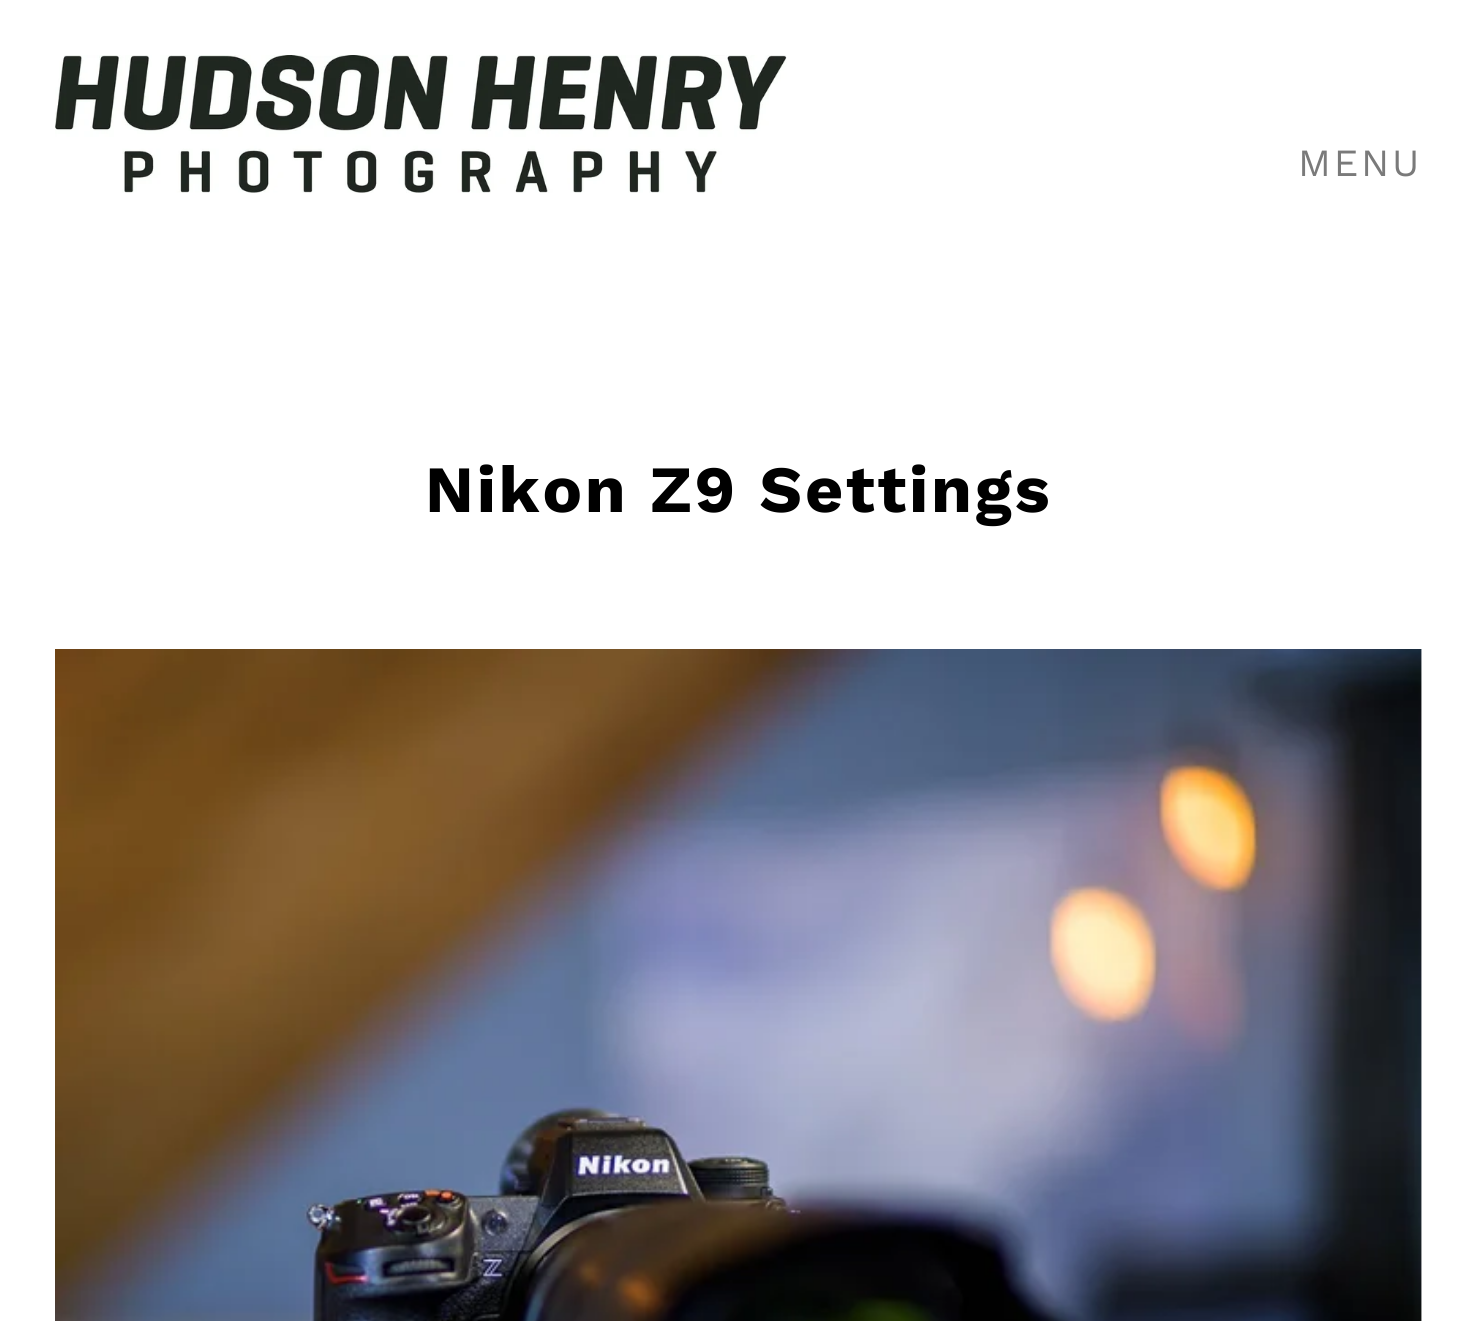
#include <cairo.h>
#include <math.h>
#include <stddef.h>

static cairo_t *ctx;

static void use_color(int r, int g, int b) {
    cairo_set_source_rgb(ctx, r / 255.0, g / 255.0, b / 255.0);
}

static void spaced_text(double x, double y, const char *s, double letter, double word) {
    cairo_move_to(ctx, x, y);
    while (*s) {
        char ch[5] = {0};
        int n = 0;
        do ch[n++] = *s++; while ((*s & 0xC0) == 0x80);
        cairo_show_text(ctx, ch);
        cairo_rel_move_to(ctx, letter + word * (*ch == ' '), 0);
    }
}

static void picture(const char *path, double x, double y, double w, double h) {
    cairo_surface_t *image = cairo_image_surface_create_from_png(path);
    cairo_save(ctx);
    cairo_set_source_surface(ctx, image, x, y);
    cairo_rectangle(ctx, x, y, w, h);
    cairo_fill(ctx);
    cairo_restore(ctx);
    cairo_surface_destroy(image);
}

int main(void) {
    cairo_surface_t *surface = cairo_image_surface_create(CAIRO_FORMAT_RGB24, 1476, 1321);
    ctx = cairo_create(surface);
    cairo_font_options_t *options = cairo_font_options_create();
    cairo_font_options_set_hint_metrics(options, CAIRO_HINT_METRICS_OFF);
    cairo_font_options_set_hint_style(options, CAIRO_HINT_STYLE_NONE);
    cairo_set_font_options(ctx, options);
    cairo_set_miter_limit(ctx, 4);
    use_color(255, 255, 255);
    cairo_paint(ctx);
    picture("img1.png", 55, 55, 732, 138);
    cairo_select_font_face(ctx, "Work Sans", CAIRO_FONT_SLANT_NORMAL, CAIRO_FONT_WEIGHT_NORMAL);
    cairo_set_font_size(ctx, 38.5);
    use_color(122, 122, 122);
    spaced_text(1298, 176, "MENU", 2.75, 0);
    cairo_select_font_face(ctx, "Work Sans", CAIRO_FONT_SLANT_NORMAL, CAIRO_FONT_WEIGHT_BOLD);
    cairo_set_font_size(ctx, 66);
    use_color(0, 0, 0);
    spaced_text(425, 512, "Nikon Z9 Settings", 2.75, 0);
    picture("img2.png", 55, 649, 1367, 672);
    cairo_surface_write_to_png(surface, "result.png");
    cairo_font_options_destroy(options);
    cairo_destroy(ctx);
    cairo_surface_destroy(surface);
    return 0;
}
